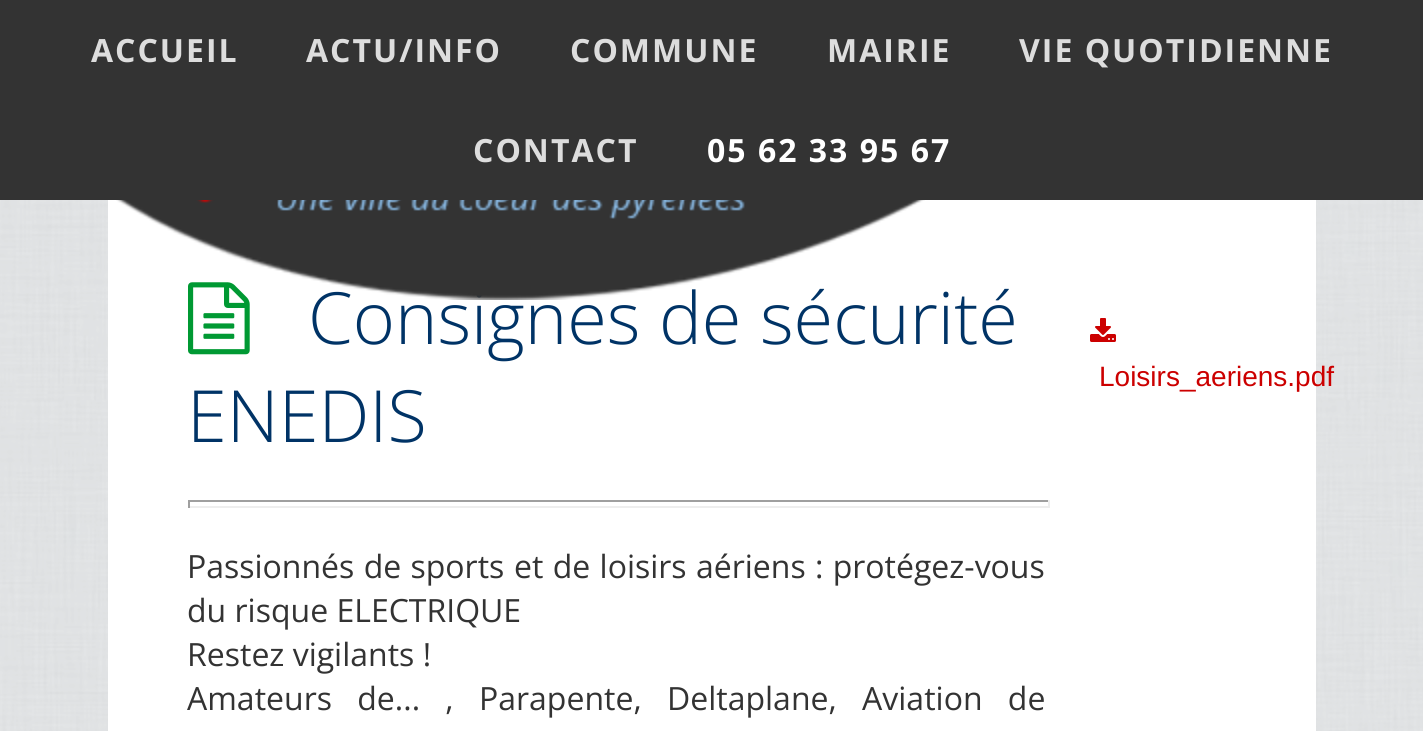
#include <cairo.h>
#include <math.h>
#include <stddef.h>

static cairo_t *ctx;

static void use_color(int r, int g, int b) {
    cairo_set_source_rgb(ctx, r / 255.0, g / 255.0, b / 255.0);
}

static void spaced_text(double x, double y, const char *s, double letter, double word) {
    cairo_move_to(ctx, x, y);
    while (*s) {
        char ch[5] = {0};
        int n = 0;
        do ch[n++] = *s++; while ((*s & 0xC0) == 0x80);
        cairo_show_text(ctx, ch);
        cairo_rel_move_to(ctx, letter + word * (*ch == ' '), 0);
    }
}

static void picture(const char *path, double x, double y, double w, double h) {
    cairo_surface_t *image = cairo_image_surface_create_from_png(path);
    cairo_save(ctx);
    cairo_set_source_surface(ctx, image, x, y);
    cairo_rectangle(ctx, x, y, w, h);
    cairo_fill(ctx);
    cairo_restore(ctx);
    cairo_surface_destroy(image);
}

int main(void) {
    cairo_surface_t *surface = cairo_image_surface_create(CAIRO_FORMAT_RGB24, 1423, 731);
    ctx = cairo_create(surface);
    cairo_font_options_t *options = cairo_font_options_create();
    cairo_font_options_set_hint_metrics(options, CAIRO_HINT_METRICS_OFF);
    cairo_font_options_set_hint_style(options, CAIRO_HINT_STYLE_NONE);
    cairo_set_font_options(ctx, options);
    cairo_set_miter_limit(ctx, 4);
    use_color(255, 255, 255);
    cairo_paint(ctx);
    picture("img1.png", 0, 200, 1423, 531);
    use_color(51, 51, 51);
    cairo_rectangle(ctx, 0, 0, 1423, 200);
    cairo_fill(ctx);
    cairo_select_font_face(ctx, "Open Sans", CAIRO_FONT_SLANT_NORMAL, CAIRO_FONT_WEIGHT_BOLD);
    cairo_set_font_size(ctx, 32);
    use_color(221, 221, 221);
    spaced_text(91, 62, "ACCUEIL", 2, 0);
    spaced_text(306, 62, "ACTU/INFO", 2, 0);
    spaced_text(570, 62, "COMMUNE", 2, 0);
    spaced_text(827, 62, "MAIRIE", 2, 0);
    spaced_text(1019, 62, "VIE QUOTIDIENNE", 2, 0);
    spaced_text(473, 162, "CONTACT", 2, 0);
    use_color(255, 255, 255);
    spaced_text(707, 162, "05 62 33 95 67", 2, 0);
    cairo_rectangle(ctx, 108, 200, 1208, 531);
    cairo_fill(ctx);
    picture("img3.png", 188, 282, 62, 73);
    cairo_select_font_face(ctx, "Open Sans Light", CAIRO_FONT_SLANT_NORMAL, CAIRO_FONT_WEIGHT_NORMAL);
    cairo_set_font_size(ctx, 72);
    use_color(0, 51, 102);
    cairo_move_to(ctx, 308, 344);
    cairo_show_text(ctx, "Consignes de sécurité");
    picture("img2.png", 116, 200, 809, 100);
    cairo_move_to(ctx, 187, 442);
    cairo_show_text(ctx, "ENEDIS");
    use_color(159, 159, 159);
    cairo_rectangle(ctx, 188, 500, 862, 2);
    cairo_fill(ctx);
    use_color(238, 238, 238);
    cairo_rectangle(ctx, 1048, 500, 2, 8);
    cairo_fill(ctx);
    cairo_rectangle(ctx, 188, 506, 862, 2);
    cairo_fill(ctx);
    use_color(159, 159, 159);
    cairo_rectangle(ctx, 188, 500, 2, 8);
    cairo_fill(ctx);
    cairo_select_font_face(ctx, "Open Sans", CAIRO_FONT_SLANT_NORMAL, CAIRO_FONT_WEIGHT_NORMAL);
    cairo_set_font_size(ctx, 32);
    use_color(51, 51, 51);
    spaced_text(187, 578, "Passionnés de sports", 0, 1);
    spaced_text(514, 578, "et de loisirs aériens : protégez-vous", 0, 1);
    cairo_move_to(ctx, 187, 622);
    cairo_show_text(ctx, "du risque ELECTRIQUE");
    cairo_move_to(ctx, 187, 666);
    cairo_show_text(ctx, "Restez vigilants !");
    spaced_text(187, 710, "Amateurs de... , Parapente, Deltaplane, Aviation de", 0, 17);
    picture("img4.png", 1090, 318, 26, 24);
    cairo_select_font_face(ctx, "Liberation Sans", CAIRO_FONT_SLANT_NORMAL, CAIRO_FONT_WEIGHT_NORMAL);
    cairo_set_font_size(ctx, 28);
    use_color(204, 0, 0);
    cairo_move_to(ctx, 1099, 386);
    cairo_show_text(ctx, "Loisirs_aeriens.pdf");
    cairo_surface_write_to_png(surface, "result.png");
    cairo_font_options_destroy(options);
    cairo_destroy(ctx);
    cairo_surface_destroy(surface);
    return 0;
}
